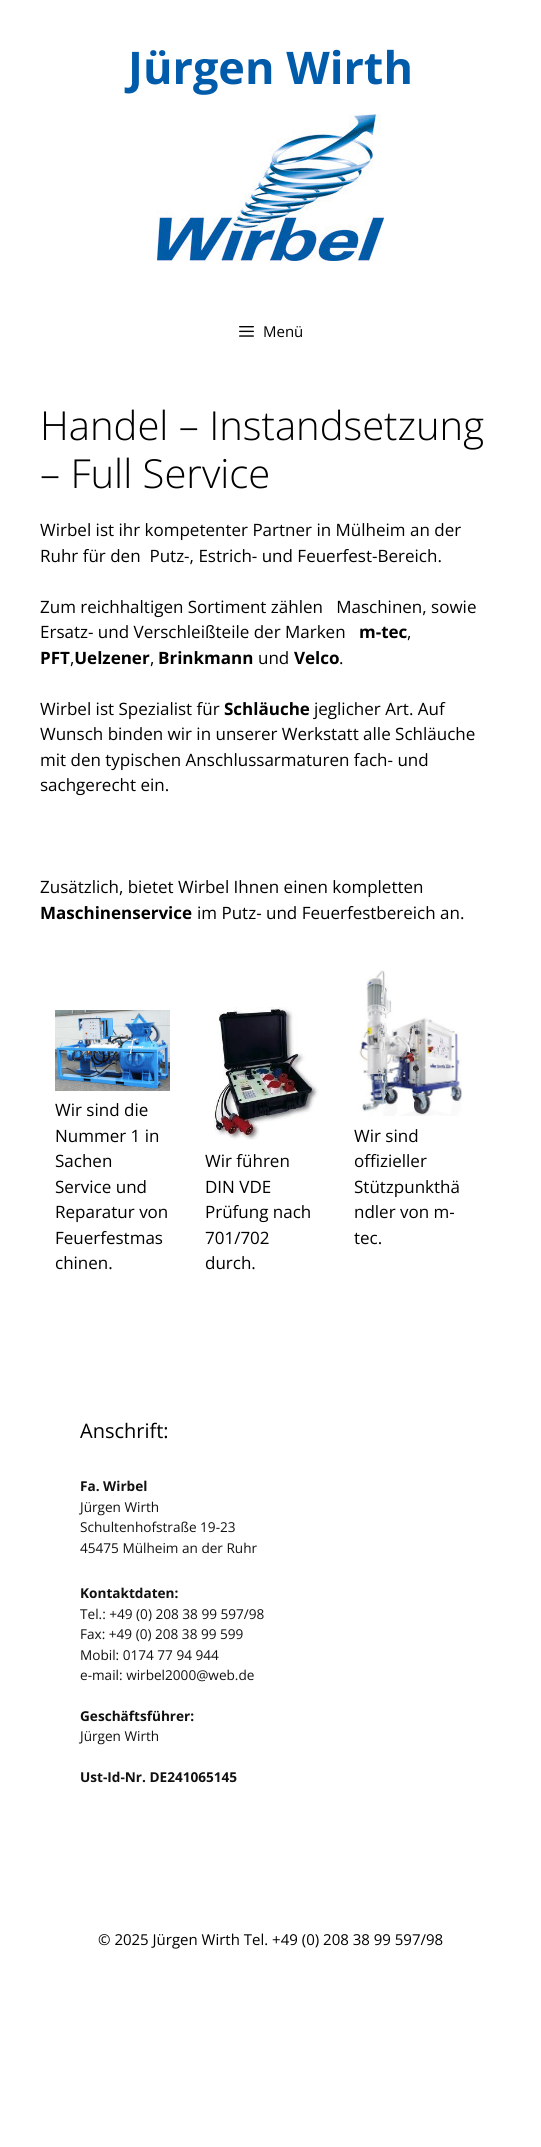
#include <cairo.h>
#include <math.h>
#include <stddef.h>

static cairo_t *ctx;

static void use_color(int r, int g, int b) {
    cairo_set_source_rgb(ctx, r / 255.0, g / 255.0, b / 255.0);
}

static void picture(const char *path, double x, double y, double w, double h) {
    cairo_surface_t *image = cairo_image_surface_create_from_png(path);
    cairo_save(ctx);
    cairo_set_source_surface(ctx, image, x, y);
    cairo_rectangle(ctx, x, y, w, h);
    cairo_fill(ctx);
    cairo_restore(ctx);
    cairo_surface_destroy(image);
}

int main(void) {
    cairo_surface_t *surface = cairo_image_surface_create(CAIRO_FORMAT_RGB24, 541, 2147);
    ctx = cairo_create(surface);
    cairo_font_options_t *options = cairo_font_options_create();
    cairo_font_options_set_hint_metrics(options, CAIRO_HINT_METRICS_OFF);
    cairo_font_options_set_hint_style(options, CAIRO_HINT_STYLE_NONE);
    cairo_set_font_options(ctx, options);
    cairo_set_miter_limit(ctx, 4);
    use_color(255, 255, 255);
    cairo_paint(ctx);
    cairo_select_font_face(ctx, "Open Sans", CAIRO_FONT_SLANT_NORMAL, CAIRO_FONT_WEIGHT_BOLD);
    cairo_set_font_size(ctx, 45);
    use_color(0, 91, 171);
    cairo_move_to(ctx, 128, 84);
    cairo_show_text(ctx, "Jürgen Wirth");
    picture("img1.png", 157, 114, 227, 147);
    picture("img2.png", 239, 326, 15, 11);
    cairo_select_font_face(ctx, "Open Sans", CAIRO_FONT_SLANT_NORMAL, CAIRO_FONT_WEIGHT_NORMAL);
    cairo_set_font_size(ctx, 15);
    use_color(0, 0, 0);
    cairo_move_to(ctx, 263, 337);
    cairo_show_text(ctx, "Menü");
    cairo_select_font_face(ctx, "Open Sans Light", CAIRO_FONT_SLANT_NORMAL, CAIRO_FONT_WEIGHT_NORMAL);
    cairo_set_font_size(ctx, 40);
    cairo_move_to(ctx, 40, 440);
    cairo_show_text(ctx, "Handel – Instandsetzung");
    cairo_move_to(ctx, 40, 488);
    cairo_show_text(ctx, "– Full Service");
    cairo_select_font_face(ctx, "Open Sans", CAIRO_FONT_SLANT_NORMAL, CAIRO_FONT_WEIGHT_NORMAL);
    cairo_set_font_size(ctx, 17);
    cairo_move_to(ctx, 40, 536);
    cairo_show_text(ctx, "Wirbel ist ihr kompetenter Partner in Mülheim an der");
    cairo_move_to(ctx, 40, 562);
    cairo_show_text(ctx, "Ruhr für den  Putz-, Estrich- und Feuerfest-Bereich.");
    cairo_move_to(ctx, 40, 613);
    cairo_show_text(ctx, "Zum reichhaltigen Sortiment zählen   Maschinen, sowie");
    cairo_move_to(ctx, 40, 638);
    cairo_show_text(ctx, "Ersatz- und Verschleißteile der Marken");
    cairo_select_font_face(ctx, "Open Sans", CAIRO_FONT_SLANT_NORMAL, CAIRO_FONT_WEIGHT_BOLD);
    cairo_move_to(ctx, 359, 638);
    cairo_show_text(ctx, "m-tec");
    cairo_select_font_face(ctx, "Open Sans", CAIRO_FONT_SLANT_NORMAL, CAIRO_FONT_WEIGHT_NORMAL);
    cairo_move_to(ctx, 407, 638);
    cairo_show_text(ctx, ",");
    cairo_select_font_face(ctx, "Open Sans", CAIRO_FONT_SLANT_NORMAL, CAIRO_FONT_WEIGHT_BOLD);
    cairo_move_to(ctx, 40, 664);
    cairo_show_text(ctx, "PFT Uelzener");
    cairo_move_to(ctx, 158, 664);
    cairo_show_text(ctx, "Brinkmann");
    cairo_select_font_face(ctx, "Open Sans", CAIRO_FONT_SLANT_NORMAL, CAIRO_FONT_WEIGHT_NORMAL);
    cairo_move_to(ctx, 258, 664);
    cairo_show_text(ctx, "und");
    cairo_select_font_face(ctx, "Open Sans", CAIRO_FONT_SLANT_NORMAL, CAIRO_FONT_WEIGHT_BOLD);
    cairo_move_to(ctx, 294, 664);
    cairo_show_text(ctx, "Velco");
    cairo_select_font_face(ctx, "Open Sans", CAIRO_FONT_SLANT_NORMAL, CAIRO_FONT_WEIGHT_NORMAL);
    cairo_move_to(ctx, 70, 664);
    cairo_show_text(ctx, ",");
    cairo_move_to(ctx, 150, 664);
    cairo_show_text(ctx, ",");
    cairo_move_to(ctx, 339, 664);
    cairo_show_text(ctx, ".");
    cairo_move_to(ctx, 40, 715);
    cairo_show_text(ctx, "Wirbel ist Spezialist für");
    cairo_select_font_face(ctx, "Open Sans", CAIRO_FONT_SLANT_NORMAL, CAIRO_FONT_WEIGHT_BOLD);
    cairo_move_to(ctx, 224, 715);
    cairo_show_text(ctx, "Schläuche");
    cairo_select_font_face(ctx, "Open Sans", CAIRO_FONT_SLANT_NORMAL, CAIRO_FONT_WEIGHT_NORMAL);
    cairo_move_to(ctx, 314, 715);
    cairo_show_text(ctx, "jeglicher Art. Auf");
    cairo_move_to(ctx, 40, 740);
    cairo_show_text(ctx, "Wunsch binden wir in unserer Werkstatt alle Schläuche");
    cairo_move_to(ctx, 40, 766);
    cairo_show_text(ctx, "mit den typischen Anschlussarmaturen fach- und");
    cairo_move_to(ctx, 40, 791);
    cairo_show_text(ctx, "sachgerecht ein.");
    cairo_move_to(ctx, 40, 893);
    cairo_show_text(ctx, "Zusätzlich, bietet Wirbel Ihnen einen kompletten");
    cairo_select_font_face(ctx, "Open Sans", CAIRO_FONT_SLANT_NORMAL, CAIRO_FONT_WEIGHT_BOLD);
    cairo_move_to(ctx, 40, 919);
    cairo_show_text(ctx, "Maschinenservice");
    cairo_select_font_face(ctx, "Open Sans", CAIRO_FONT_SLANT_NORMAL, CAIRO_FONT_WEIGHT_NORMAL);
    cairo_move_to(ctx, 197, 919);
    cairo_show_text(ctx, "im Putz- und Feuerfestbereich an.");
    picture("img3.png", 55, 1010, 115, 81);
    cairo_move_to(ctx, 55, 1116);
    cairo_show_text(ctx, "Wir sind die");
    cairo_move_to(ctx, 55, 1142);
    cairo_show_text(ctx, "Nummer 1 in");
    cairo_move_to(ctx, 55, 1167);
    cairo_show_text(ctx, "Sachen");
    cairo_move_to(ctx, 55, 1193);
    cairo_show_text(ctx, "Service und");
    cairo_move_to(ctx, 55, 1218);
    cairo_show_text(ctx, "Reparatur von");
    cairo_move_to(ctx, 55, 1244);
    cairo_show_text(ctx, "Feuerfestmas");
    cairo_move_to(ctx, 55, 1269);
    cairo_show_text(ctx, "chinen.");
    picture("img4.png", 214, 1007, 105, 133);
    cairo_move_to(ctx, 205, 1167);
    cairo_show_text(ctx, "Wir führen");
    cairo_move_to(ctx, 205, 1193);
    cairo_show_text(ctx, "DIN VDE");
    cairo_move_to(ctx, 205, 1218);
    cairo_show_text(ctx, "Prüfung nach");
    cairo_move_to(ctx, 205, 1244);
    cairo_show_text(ctx, "701/702");
    cairo_move_to(ctx, 205, 1269);
    cairo_show_text(ctx, "durch.");
    picture("img5.png", 359, 970, 103, 146);
    cairo_move_to(ctx, 354, 1142);
    cairo_show_text(ctx, "Wir sind");
    cairo_move_to(ctx, 354, 1167);
    cairo_show_text(ctx, "offizieller");
    cairo_move_to(ctx, 354, 1193);
    cairo_show_text(ctx, "Stützpunkthä");
    cairo_move_to(ctx, 354, 1218);
    cairo_show_text(ctx, "ndler von m-");
    cairo_move_to(ctx, 354, 1244);
    cairo_show_text(ctx, "tec.");
    cairo_set_font_size(ctx, 20);
    cairo_move_to(ctx, 80, 1438);
    cairo_show_text(ctx, "Anschrift:");
    cairo_select_font_face(ctx, "Open Sans", CAIRO_FONT_SLANT_NORMAL, CAIRO_FONT_WEIGHT_BOLD);
    cairo_set_font_size(ctx, 13.6);
    use_color(17, 17, 17);
    cairo_move_to(ctx, 80, 1491);
    cairo_show_text(ctx, "Fa. Wirbel");
    cairo_select_font_face(ctx, "Open Sans", CAIRO_FONT_SLANT_NORMAL, CAIRO_FONT_WEIGHT_NORMAL);
    cairo_move_to(ctx, 80, 1512);
    cairo_show_text(ctx, "Jürgen Wirth");
    cairo_move_to(ctx, 80, 1532);
    cairo_show_text(ctx, "Schultenhofstraße 19-23");
    cairo_move_to(ctx, 80, 1553);
    cairo_show_text(ctx, "45475 Mülheim an der Ruhr");
    cairo_select_font_face(ctx, "Open Sans", CAIRO_FONT_SLANT_NORMAL, CAIRO_FONT_WEIGHT_BOLD);
    cairo_move_to(ctx, 80, 1598);
    cairo_show_text(ctx, "Kontaktdaten:");
    cairo_select_font_face(ctx, "Open Sans", CAIRO_FONT_SLANT_NORMAL, CAIRO_FONT_WEIGHT_NORMAL);
    cairo_move_to(ctx, 80, 1619);
    cairo_show_text(ctx, "Tel.: +49 (0) 208 38 99 597/98");
    cairo_move_to(ctx, 80, 1639);
    cairo_show_text(ctx, "Fax: +49 (0) 208 38 99 599");
    cairo_move_to(ctx, 80, 1660);
    cairo_show_text(ctx, "Mobil: 0174 77 94 944");
    cairo_move_to(ctx, 80, 1680);
    cairo_show_text(ctx, "e-mail: wirbel2000@web.de");
    cairo_select_font_face(ctx, "Open Sans", CAIRO_FONT_SLANT_NORMAL, CAIRO_FONT_WEIGHT_BOLD);
    cairo_move_to(ctx, 80, 1721);
    cairo_show_text(ctx, "Geschäftsführer:");
    cairo_select_font_face(ctx, "Open Sans", CAIRO_FONT_SLANT_NORMAL, CAIRO_FONT_WEIGHT_NORMAL);
    cairo_move_to(ctx, 80, 1741);
    cairo_show_text(ctx, "Jürgen Wirth");
    cairo_select_font_face(ctx, "Open Sans", CAIRO_FONT_SLANT_NORMAL, CAIRO_FONT_WEIGHT_BOLD);
    cairo_move_to(ctx, 80, 1782);
    cairo_show_text(ctx, "Ust-Id-Nr. DE241065145");
    cairo_select_font_face(ctx, "Open Sans", CAIRO_FONT_SLANT_NORMAL, CAIRO_FONT_WEIGHT_NORMAL);
    cairo_set_font_size(ctx, 15);
    use_color(0, 0, 0);
    cairo_move_to(ctx, 98, 1945);
    cairo_show_text(ctx, "© 2025 Jürgen Wirth Tel. +49 (0) 208 38 99 597/98");
    cairo_surface_write_to_png(surface, "result.png");
    cairo_font_options_destroy(options);
    cairo_destroy(ctx);
    cairo_surface_destroy(surface);
    return 0;
}
